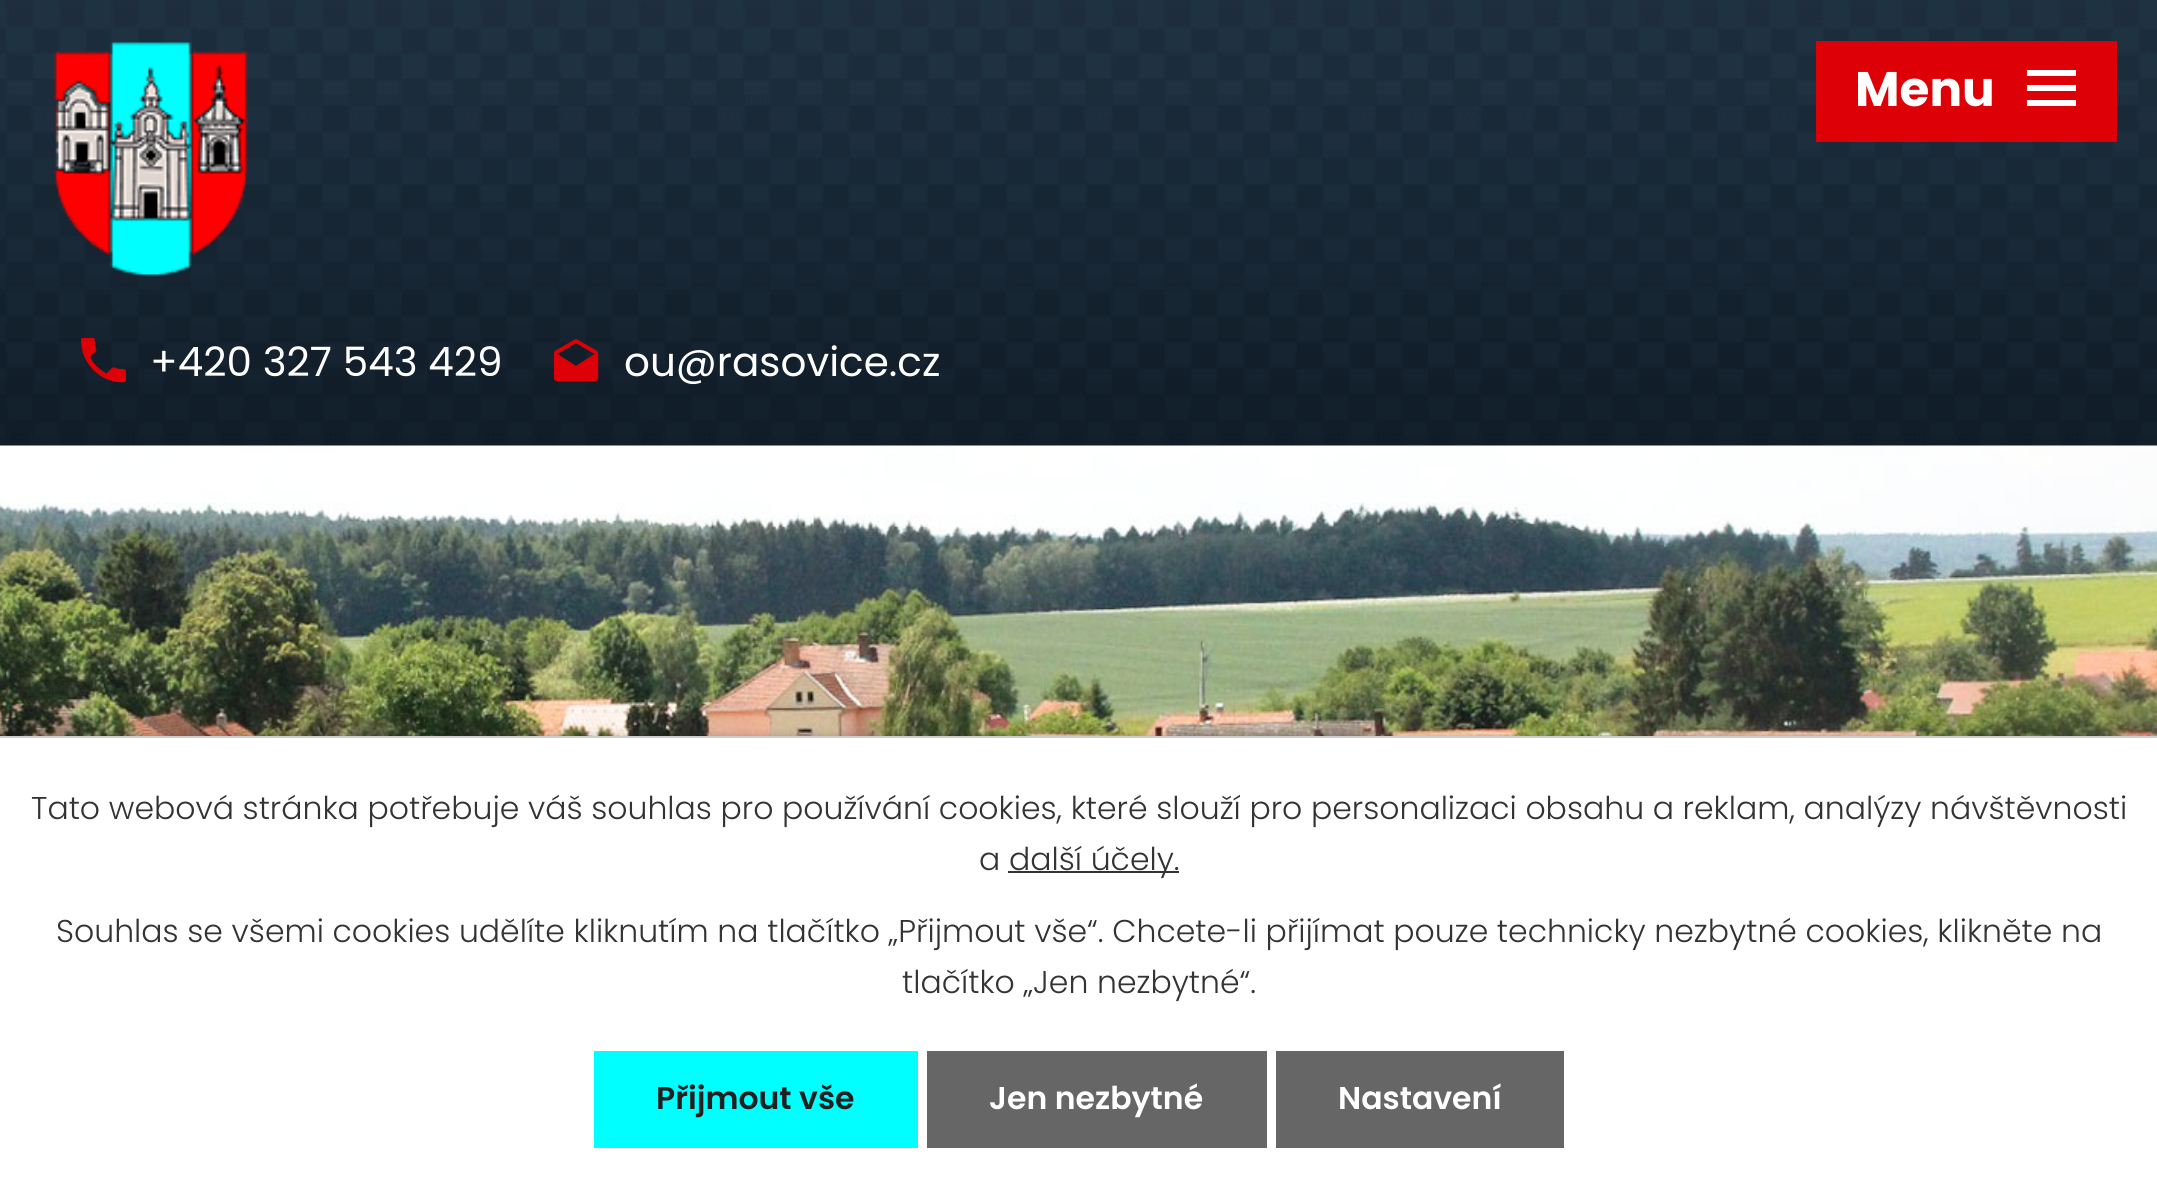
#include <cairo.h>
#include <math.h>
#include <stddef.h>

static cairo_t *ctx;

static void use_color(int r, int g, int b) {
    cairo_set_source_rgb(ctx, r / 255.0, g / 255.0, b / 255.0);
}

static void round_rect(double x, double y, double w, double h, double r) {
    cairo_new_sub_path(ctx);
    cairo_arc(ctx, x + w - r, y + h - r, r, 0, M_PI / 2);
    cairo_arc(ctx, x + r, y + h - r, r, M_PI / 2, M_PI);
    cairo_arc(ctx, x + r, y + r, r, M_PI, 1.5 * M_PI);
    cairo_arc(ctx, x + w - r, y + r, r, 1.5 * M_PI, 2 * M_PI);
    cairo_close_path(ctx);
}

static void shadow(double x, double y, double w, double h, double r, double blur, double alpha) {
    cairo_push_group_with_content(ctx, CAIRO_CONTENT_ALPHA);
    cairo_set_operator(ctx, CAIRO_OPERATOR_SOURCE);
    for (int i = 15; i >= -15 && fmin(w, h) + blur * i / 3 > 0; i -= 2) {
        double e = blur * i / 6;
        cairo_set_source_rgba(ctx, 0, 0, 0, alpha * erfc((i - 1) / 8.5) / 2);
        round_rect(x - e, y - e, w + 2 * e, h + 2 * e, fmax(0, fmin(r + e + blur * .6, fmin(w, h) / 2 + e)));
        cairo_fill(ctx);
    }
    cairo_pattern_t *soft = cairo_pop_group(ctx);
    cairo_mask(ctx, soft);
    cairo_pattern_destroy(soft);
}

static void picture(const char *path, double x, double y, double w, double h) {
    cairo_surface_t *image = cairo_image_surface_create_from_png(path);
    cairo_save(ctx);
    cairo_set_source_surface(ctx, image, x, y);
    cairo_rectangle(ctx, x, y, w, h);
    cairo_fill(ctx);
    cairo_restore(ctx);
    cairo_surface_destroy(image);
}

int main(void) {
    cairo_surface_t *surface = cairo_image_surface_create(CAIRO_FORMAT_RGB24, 2157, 1190);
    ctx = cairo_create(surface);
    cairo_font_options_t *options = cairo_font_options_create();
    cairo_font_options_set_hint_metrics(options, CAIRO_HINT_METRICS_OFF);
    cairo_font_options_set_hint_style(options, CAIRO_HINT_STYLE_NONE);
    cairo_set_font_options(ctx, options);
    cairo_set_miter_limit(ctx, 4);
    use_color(255, 255, 255);
    cairo_paint(ctx);
    picture("img5.png", 0, 445, 2157, 291);
    picture("img1.png", 0, 0, 2157, 446);
    use_color(221, 0, 7);
    cairo_rectangle(ctx, 1816, 41, 301, 101);
    cairo_fill(ctx);
    cairo_select_font_face(ctx, "Poppins", CAIRO_FONT_SLANT_NORMAL, CAIRO_FONT_WEIGHT_BOLD);
    cairo_set_font_size(ctx, 48.5);
    use_color(255, 255, 255);
    cairo_move_to(ctx, 1855, 106);
    cairo_show_text(ctx, "Menu");
    cairo_new_path(ctx);
    cairo_move_to(ctx, 2027, 106);
    cairo_line_to(ctx, 2027, 100);
    cairo_line_to(ctx, 2076, 100);
    cairo_line_to(ctx, 2076, 106);
    cairo_close_path(ctx);
    cairo_move_to(ctx, 2027, 70);
    cairo_line_to(ctx, 2076, 70);
    cairo_line_to(ctx, 2076, 76);
    cairo_line_to(ctx, 2027, 76);
    cairo_close_path(ctx);
    cairo_move_to(ctx, 2027, 91);
    cairo_line_to(ctx, 2027, 85);
    cairo_line_to(ctx, 2076, 85);
    cairo_line_to(ctx, 2076, 91);
    cairo_close_path(ctx);
    cairo_fill(ctx);
    picture("img2.png", 53, 42, 196, 235);
    picture("img3.png", 81, 338, 45, 45);
    cairo_select_font_face(ctx, "Poppins", CAIRO_FONT_SLANT_NORMAL, CAIRO_FONT_WEIGHT_NORMAL);
    cairo_set_font_size(ctx, 40.5);
    cairo_move_to(ctx, 150, 376);
    cairo_show_text(ctx, "+420 327 543 429");
    picture("img4.png", 554, 338, 45, 44);
    cairo_move_to(ctx, 624, 376);
    cairo_show_text(ctx, "ou@rasovice.cz");
    use_color(0, 0, 0);
    shadow(0, 736, 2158, 454, 0, 5.5, 0.2);
    use_color(255, 255, 255);
    cairo_rectangle(ctx, 0, 738, 2157, 452);
    cairo_fill(ctx);
    use_color(204, 204, 204);
    cairo_rectangle(ctx, 0, 736, 2157, 2);
    cairo_fill(ctx);
    cairo_select_font_face(ctx, "Poppins Light", CAIRO_FONT_SLANT_NORMAL, CAIRO_FONT_WEIGHT_NORMAL);
    cairo_set_font_size(ctx, 31.5);
    use_color(51, 51, 51);
    cairo_move_to(ctx, 31, 819);
    cairo_show_text(ctx, "Tato webová stránka potřebuje váš souhlas pro používání cookies, které slouží pro personalizaci obsahu a reklam, analýzy návštěvnosti");
    cairo_move_to(ctx, 979, 870);
    cairo_show_text(ctx, "a");
    cairo_rectangle(ctx, 1008, 871, 171, 2);
    cairo_fill(ctx);
    cairo_move_to(ctx, 1009, 870);
    cairo_show_text(ctx, "další účely.");
    cairo_move_to(ctx, 56, 942);
    cairo_show_text(ctx, "Souhlas se všemi cookies udělíte kliknutím na tlačítko „Přijmout vše“. Chcete-li přijímat pouze technicky nezbytné cookies, klikněte na");
    cairo_move_to(ctx, 902, 993);
    cairo_show_text(ctx, "tlačítko „Jen nezbytné“.");
    use_color(0, 255, 255);
    cairo_rectangle(ctx, 594, 1051, 324, 97);
    cairo_fill(ctx);
    cairo_select_font_face(ctx, "Poppins SemiBold", CAIRO_FONT_SLANT_NORMAL, CAIRO_FONT_WEIGHT_NORMAL);
    use_color(32, 32, 32);
    cairo_move_to(ctx, 656, 1109);
    cairo_show_text(ctx, "Přijmout vše");
    use_color(102, 102, 102);
    cairo_rectangle(ctx, 927, 1051, 340, 97);
    cairo_fill(ctx);
    use_color(255, 255, 255);
    cairo_move_to(ctx, 989, 1109);
    cairo_show_text(ctx, "Jen nezbytné");
    use_color(102, 102, 102);
    cairo_rectangle(ctx, 1276, 1051, 288, 97);
    cairo_fill(ctx);
    use_color(255, 255, 255);
    cairo_move_to(ctx, 1338, 1109);
    cairo_show_text(ctx, "Nastavení");
    cairo_surface_write_to_png(surface, "result.png");
    cairo_font_options_destroy(options);
    cairo_destroy(ctx);
    cairo_surface_destroy(surface);
    return 0;
}
